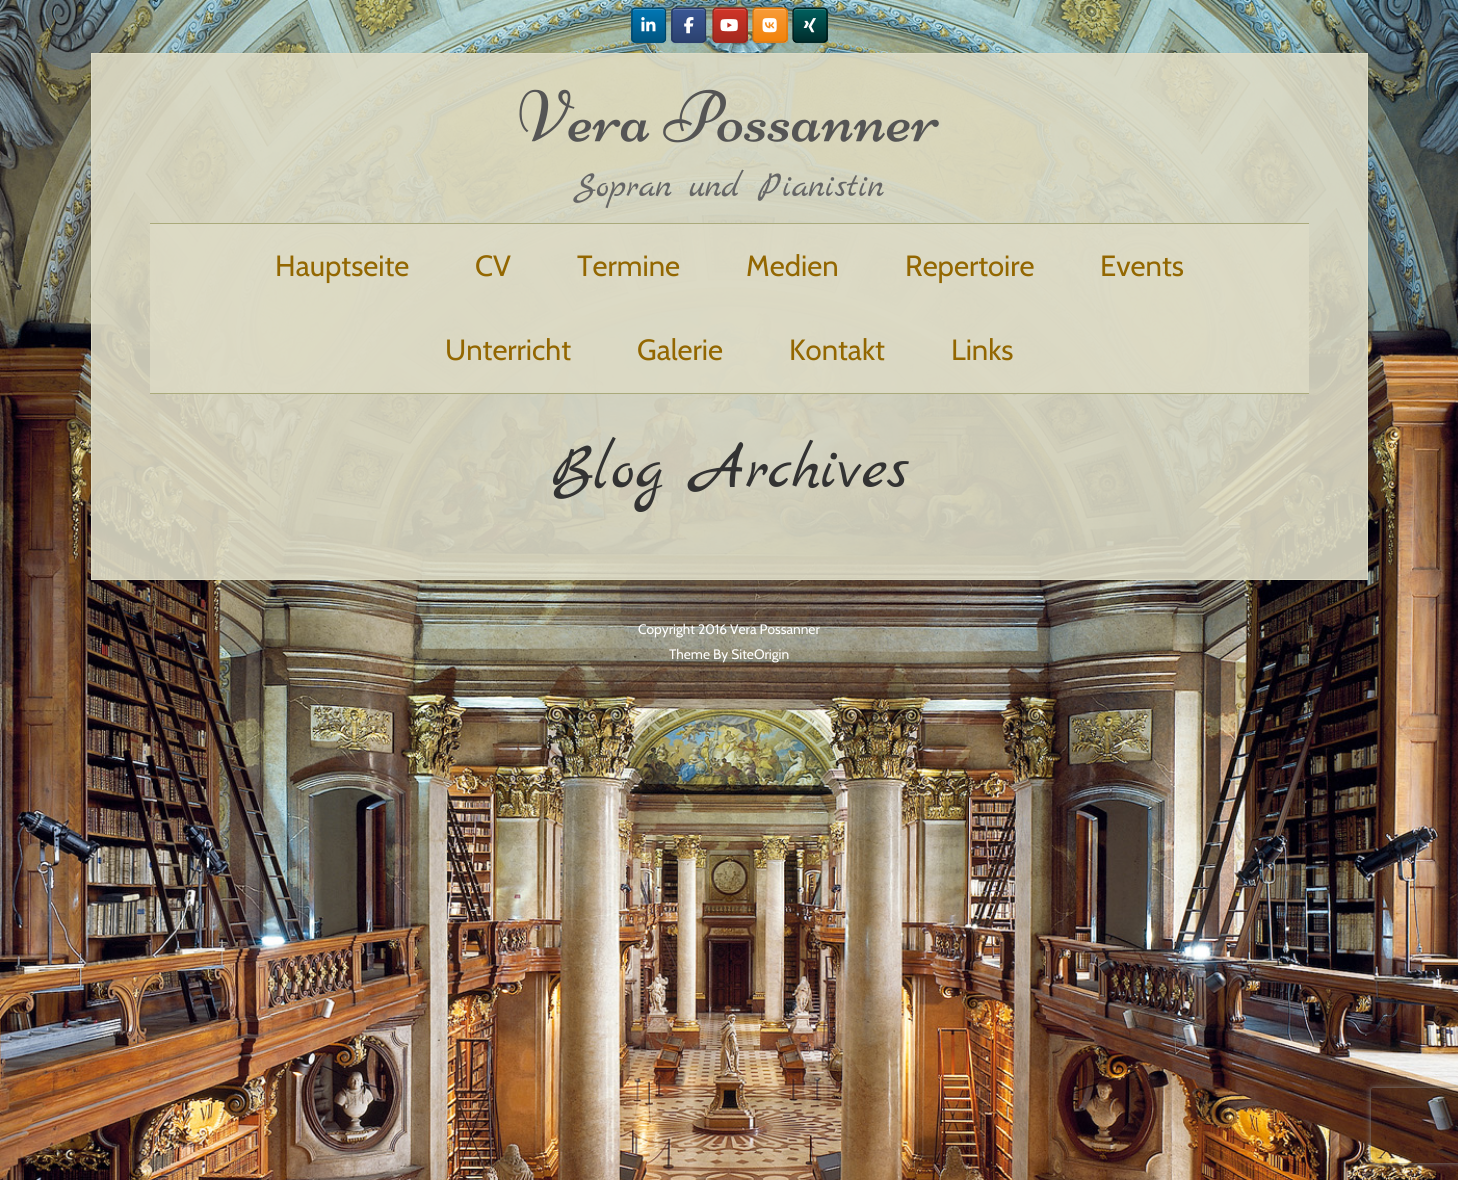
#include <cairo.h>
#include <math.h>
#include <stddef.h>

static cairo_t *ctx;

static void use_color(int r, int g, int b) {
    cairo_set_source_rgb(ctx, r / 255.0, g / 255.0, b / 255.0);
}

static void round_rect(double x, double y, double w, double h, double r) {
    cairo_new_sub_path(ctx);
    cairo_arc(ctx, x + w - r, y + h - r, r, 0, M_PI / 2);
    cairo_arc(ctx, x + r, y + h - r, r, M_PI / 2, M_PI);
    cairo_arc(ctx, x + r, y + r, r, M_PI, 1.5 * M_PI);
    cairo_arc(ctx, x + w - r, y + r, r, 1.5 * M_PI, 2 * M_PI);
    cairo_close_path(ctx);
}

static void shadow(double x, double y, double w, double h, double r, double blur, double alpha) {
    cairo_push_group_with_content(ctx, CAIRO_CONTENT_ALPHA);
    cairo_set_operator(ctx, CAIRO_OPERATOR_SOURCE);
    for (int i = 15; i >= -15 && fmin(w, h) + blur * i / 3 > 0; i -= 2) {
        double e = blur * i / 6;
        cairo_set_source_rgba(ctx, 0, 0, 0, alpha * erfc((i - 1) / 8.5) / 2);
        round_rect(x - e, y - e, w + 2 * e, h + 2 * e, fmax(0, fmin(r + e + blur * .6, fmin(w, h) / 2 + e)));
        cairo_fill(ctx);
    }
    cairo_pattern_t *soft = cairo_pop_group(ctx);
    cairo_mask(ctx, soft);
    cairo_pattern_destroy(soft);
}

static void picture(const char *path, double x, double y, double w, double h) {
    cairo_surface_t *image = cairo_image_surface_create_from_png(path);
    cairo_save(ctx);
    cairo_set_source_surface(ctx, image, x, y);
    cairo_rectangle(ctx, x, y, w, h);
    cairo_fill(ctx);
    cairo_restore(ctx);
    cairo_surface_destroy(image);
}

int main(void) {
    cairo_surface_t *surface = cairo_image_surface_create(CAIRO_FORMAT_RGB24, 1458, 1180);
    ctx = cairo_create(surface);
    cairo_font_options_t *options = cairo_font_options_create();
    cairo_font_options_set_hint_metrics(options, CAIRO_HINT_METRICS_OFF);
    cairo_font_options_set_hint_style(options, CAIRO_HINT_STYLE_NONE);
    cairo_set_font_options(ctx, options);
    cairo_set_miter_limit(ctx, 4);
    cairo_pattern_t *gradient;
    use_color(255, 255, 255);
    cairo_paint(ctx);
    picture("img1.png", 0, 0, 1458, 1180);
    cairo_save(ctx);
    cairo_set_fill_rule(ctx, CAIRO_FILL_RULE_EVEN_ODD);
    cairo_new_path(ctx);
    cairo_move_to(ctx, 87, 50);
    cairo_line_to(ctx, 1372, 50);
    cairo_line_to(ctx, 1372, 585);
    cairo_line_to(ctx, 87, 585);
    cairo_close_path(ctx);
    cairo_move_to(ctx, 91, 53);
    cairo_line_to(ctx, 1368, 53);
    cairo_line_to(ctx, 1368, 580);
    cairo_line_to(ctx, 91, 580);
    cairo_close_path(ctx);
    cairo_clip(ctx);
    use_color(0, 0, 0);
    shadow(91, 54, 1277, 527, 0, 1, 0.1);
    cairo_restore(ctx);
    cairo_set_source_rgba(ctx, 0.867, 0.859, 0.773, 0.9);
    cairo_rectangle(ctx, 91.5, 53.5, 1276, 526);
    cairo_fill_preserve(ctx);
    use_color(221, 219, 197);
    cairo_set_line_width(ctx, 1);
    cairo_stroke(ctx);
    use_color(0, 0, 0);
    shadow(631, 9, 35, 35, 4, 1, 0.07);
    cairo_save(ctx);
    round_rect(631, 8, 35, 35, 4);
    cairo_clip(ctx);
    gradient = cairo_pattern_create_linear(633, 9, 633, -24);
    cairo_pattern_add_color_stop_rgba(gradient, 0, 0.004, 0.333, 0.506, 1);
    cairo_pattern_add_color_stop_rgba(gradient, 1, 0.004, 0.467, 0.706, 1);
    cairo_set_source(ctx, gradient);
    cairo_pattern_destroy(gradient);
    cairo_rectangle(ctx, 631, 8, 35, 1);
    cairo_fill(ctx);
    gradient = cairo_pattern_create_linear(633, 41, 633, 9);
    cairo_pattern_add_color_stop_rgba(gradient, 0, 0.004, 0.333, 0.506, 1);
    cairo_pattern_add_color_stop_rgba(gradient, 1, 0.004, 0.467, 0.706, 1);
    cairo_set_source(ctx, gradient);
    cairo_pattern_destroy(gradient);
    cairo_rectangle(ctx, 631, 9, 35, 32);
    cairo_fill(ctx);
    gradient = cairo_pattern_create_linear(633, 74, 633, 41);
    cairo_pattern_add_color_stop_rgba(gradient, 0, 0.004, 0.333, 0.506, 1);
    cairo_pattern_add_color_stop_rgba(gradient, 1, 0.004, 0.467, 0.706, 1);
    cairo_set_source(ctx, gradient);
    cairo_pattern_destroy(gradient);
    cairo_rectangle(ctx, 631, 41, 35, 2);
    cairo_fill(ctx);
    cairo_restore(ctx);
    use_color(52, 145, 194);
    cairo_new_path(ctx);
    cairo_move_to(ctx, 635, 10);
    cairo_line_to(ctx, 662, 10);
    cairo_curve_to(ctx, 664, 10, 665, 11, 665, 13);
    cairo_line_to(ctx, 665, 11.5);
    cairo_curve_to(ctx, 665, 10, 664, 9, 662.5, 9);
    cairo_line_to(ctx, 635.5, 9);
    cairo_curve_to(ctx, 634.5, 9, 633.5, 9.5, 633, 11);
    cairo_close_path(ctx);
    cairo_fill(ctx);
    cairo_new_path(ctx);
    cairo_move_to(ctx, 633, 9);
    cairo_curve_to(ctx, 633.5, 8.5, 634.5, 8, 635.5, 8);
    cairo_line_to(ctx, 662, 8);
    cairo_curve_to(ctx, 663, 8, 664, 8.5, 664.5, 9);
    use_color(1, 75, 114);
    cairo_set_line_width(ctx, 1.2);
    cairo_stroke(ctx);
    cairo_new_path(ctx);
    cairo_move_to(ctx, 664.5, 9);
    cairo_curve_to(ctx, 665.5, 10, 665.5, 10.5, 665.5, 11.5);
    cairo_line_to(ctx, 665.5, 38.5);
    cairo_curve_to(ctx, 665.5, 39.5, 665.5, 40, 664.5, 41);
    use_color(1, 69, 104);
    cairo_stroke(ctx);
    cairo_new_path(ctx);
    cairo_move_to(ctx, 664.5, 41);
    cairo_curve_to(ctx, 664, 41.5, 663, 42, 662, 42);
    cairo_line_to(ctx, 635.5, 42);
    cairo_curve_to(ctx, 634.5, 42, 633.5, 41.5, 633, 41);
    use_color(0, 59, 89);
    cairo_stroke(ctx);
    cairo_new_path(ctx);
    cairo_move_to(ctx, 633, 41);
    cairo_curve_to(ctx, 632, 40, 632, 39.5, 632, 38.5);
    cairo_line_to(ctx, 632, 11.5);
    cairo_curve_to(ctx, 632, 10.5, 632, 10, 633, 9);
    use_color(1, 69, 104);
    cairo_stroke(ctx);
    picture("img2.png", 641, 17, 15, 15);
    use_color(0, 0, 0);
    shadow(671, 9, 35, 35, 4, 1, 0.07);
    cairo_save(ctx);
    round_rect(671, 8, 35, 35, 4);
    cairo_clip(ctx);
    gradient = cairo_pattern_create_linear(673, 9, 673, -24);
    cairo_pattern_add_color_stop_rgba(gradient, 0, 0.173, 0.259, 0.439, 1);
    cairo_pattern_add_color_stop_rgba(gradient, 1, 0.227, 0.341, 0.584, 1);
    cairo_set_source(ctx, gradient);
    cairo_pattern_destroy(gradient);
    cairo_rectangle(ctx, 671, 8, 35, 1);
    cairo_fill(ctx);
    gradient = cairo_pattern_create_linear(673, 41, 673, 9);
    cairo_pattern_add_color_stop_rgba(gradient, 0, 0.173, 0.259, 0.439, 1);
    cairo_pattern_add_color_stop_rgba(gradient, 1, 0.227, 0.341, 0.584, 1);
    cairo_set_source(ctx, gradient);
    cairo_pattern_destroy(gradient);
    cairo_rectangle(ctx, 671, 9, 35, 32);
    cairo_fill(ctx);
    gradient = cairo_pattern_create_linear(673, 74, 673, 41);
    cairo_pattern_add_color_stop_rgba(gradient, 0, 0.173, 0.259, 0.439, 1);
    cairo_pattern_add_color_stop_rgba(gradient, 1, 0.227, 0.341, 0.584, 1);
    cairo_set_source(ctx, gradient);
    cairo_pattern_destroy(gradient);
    cairo_rectangle(ctx, 671, 41, 35, 2);
    cairo_fill(ctx);
    cairo_restore(ctx);
    use_color(97, 121, 169);
    cairo_new_path(ctx);
    cairo_move_to(ctx, 675, 10);
    cairo_line_to(ctx, 702, 10);
    cairo_curve_to(ctx, 704, 10, 705, 11, 705, 13);
    cairo_line_to(ctx, 705, 11.5);
    cairo_curve_to(ctx, 705, 10, 704, 9, 702.5, 9);
    cairo_line_to(ctx, 675.5, 9);
    cairo_curve_to(ctx, 674.5, 9, 673.5, 9.5, 673, 11);
    cairo_close_path(ctx);
    cairo_fill(ctx);
    cairo_new_path(ctx);
    cairo_move_to(ctx, 673, 9);
    cairo_curve_to(ctx, 673.5, 8.5, 674.5, 8, 675.5, 8);
    cairo_line_to(ctx, 702, 8);
    cairo_curve_to(ctx, 703, 8, 704, 8.5, 704.5, 9);
    use_color(39, 59, 101);
    cairo_stroke(ctx);
    cairo_new_path(ctx);
    cairo_move_to(ctx, 704.5, 9);
    cairo_curve_to(ctx, 705.5, 10, 705.5, 10.5, 705.5, 11.5);
    cairo_line_to(ctx, 705.5, 38.5);
    cairo_curve_to(ctx, 705.5, 39.5, 705.5, 40, 704.5, 41);
    use_color(37, 55, 94);
    cairo_stroke(ctx);
    cairo_new_path(ctx);
    cairo_move_to(ctx, 704.5, 41);
    cairo_curve_to(ctx, 704, 41.5, 703, 42, 702, 42);
    cairo_line_to(ctx, 675.5, 42);
    cairo_curve_to(ctx, 674.5, 42, 673.5, 41.5, 673, 41);
    use_color(32, 48, 83);
    cairo_stroke(ctx);
    cairo_new_path(ctx);
    cairo_move_to(ctx, 673, 41);
    cairo_curve_to(ctx, 672, 40, 672, 39.5, 672, 38.5);
    cairo_line_to(ctx, 672, 11.5);
    cairo_curve_to(ctx, 672, 10.5, 672, 10, 673, 9);
    use_color(37, 55, 94);
    cairo_stroke(ctx);
    picture("img3.png", 684, 17, 10, 17);
    use_color(0, 0, 0);
    shadow(713, 9, 35, 35, 4, 1, 0.07);
    cairo_save(ctx);
    round_rect(713, 8, 35, 35, 4);
    cairo_clip(ctx);
    gradient = cairo_pattern_create_linear(714, 9, 714, -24);
    cairo_pattern_add_color_stop_rgba(gradient, 0, 0.643, 0.161, 0.122, 1);
    cairo_pattern_add_color_stop_rgba(gradient, 1, 0.812, 0.204, 0.153, 1);
    cairo_set_source(ctx, gradient);
    cairo_pattern_destroy(gradient);
    cairo_rectangle(ctx, 713, 8, 35, 1);
    cairo_fill(ctx);
    gradient = cairo_pattern_create_linear(714, 41, 714, 9);
    cairo_pattern_add_color_stop_rgba(gradient, 0, 0.643, 0.161, 0.122, 1);
    cairo_pattern_add_color_stop_rgba(gradient, 1, 0.812, 0.204, 0.153, 1);
    cairo_set_source(ctx, gradient);
    cairo_pattern_destroy(gradient);
    cairo_rectangle(ctx, 713, 9, 35, 32);
    cairo_fill(ctx);
    gradient = cairo_pattern_create_linear(714, 74, 714, 41);
    cairo_pattern_add_color_stop_rgba(gradient, 0, 0.643, 0.161, 0.122, 1);
    cairo_pattern_add_color_stop_rgba(gradient, 1, 0.812, 0.204, 0.153, 1);
    cairo_set_source(ctx, gradient);
    cairo_pattern_destroy(gradient);
    cairo_rectangle(ctx, 713, 41, 35, 2);
    cairo_fill(ctx);
    cairo_restore(ctx);
    use_color(216, 93, 82);
    cairo_new_path(ctx);
    cairo_move_to(ctx, 717, 10);
    cairo_line_to(ctx, 743, 10);
    cairo_curve_to(ctx, 745, 10, 746, 11, 746, 13);
    cairo_curve_to(ctx, 746, 8, 743.5, 9, 739, 9);
    cairo_line_to(ctx, 721, 9);
    cairo_curve_to(ctx, 716.5, 9, 714, 8, 714, 13);
    cairo_curve_to(ctx, 714, 11, 715, 10, 717, 10);
    cairo_close_path(ctx);
    cairo_fill(ctx);
    cairo_new_path(ctx);
    cairo_move_to(ctx, 714, 9);
    cairo_curve_to(ctx, 715, 8.5, 715.5, 8, 716.5, 8);
    cairo_line_to(ctx, 743.5, 8);
    cairo_curve_to(ctx, 744.5, 8, 745, 8.5, 746, 9);
    use_color(151, 38, 28);
    cairo_stroke(ctx);
    cairo_new_path(ctx);
    cairo_move_to(ctx, 746, 9);
    cairo_curve_to(ctx, 746.5, 10, 747, 10.5, 747, 11.5);
    cairo_line_to(ctx, 747, 38.5);
    cairo_curve_to(ctx, 747, 39.5, 746.5, 40, 746, 41);
    use_color(143, 36, 27);
    cairo_stroke(ctx);
    cairo_new_path(ctx);
    cairo_move_to(ctx, 746, 41);
    cairo_curve_to(ctx, 745, 41.5, 744.5, 42, 743.5, 42);
    cairo_line_to(ctx, 716.5, 42);
    cairo_curve_to(ctx, 715.5, 42, 715, 41.5, 714, 41);
    use_color(130, 33, 24);
    cairo_stroke(ctx);
    cairo_new_path(ctx);
    cairo_move_to(ctx, 714, 41);
    cairo_curve_to(ctx, 713.5, 40, 713, 39.5, 713, 38.5);
    cairo_line_to(ctx, 713, 11.5);
    cairo_curve_to(ctx, 713, 10.5, 713.5, 10, 714, 9);
    use_color(143, 36, 27);
    cairo_stroke(ctx);
    picture("img4.png", 720, 19, 18, 13);
    use_color(0, 0, 0);
    shadow(753, 9, 35, 35, 4, 1, 0.07);
    cairo_save(ctx);
    round_rect(753, 8, 35, 35, 4);
    cairo_clip(ctx);
    gradient = cairo_pattern_create_linear(754, 9, 754, -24);
    cairo_pattern_add_color_stop_rgba(gradient, 0, 0.949, 0.51, 0.039, 1);
    cairo_pattern_add_color_stop_rgba(gradient, 1, 0.969, 0.608, 0.22, 1);
    cairo_set_source(ctx, gradient);
    cairo_pattern_destroy(gradient);
    cairo_rectangle(ctx, 753, 8, 35, 1);
    cairo_fill(ctx);
    gradient = cairo_pattern_create_linear(754, 41, 754, 9);
    cairo_pattern_add_color_stop_rgba(gradient, 0, 0.949, 0.51, 0.039, 1);
    cairo_pattern_add_color_stop_rgba(gradient, 1, 0.969, 0.608, 0.22, 1);
    cairo_set_source(ctx, gradient);
    cairo_pattern_destroy(gradient);
    cairo_rectangle(ctx, 753, 9, 35, 32);
    cairo_fill(ctx);
    gradient = cairo_pattern_create_linear(754, 74, 754, 41);
    cairo_pattern_add_color_stop_rgba(gradient, 0, 0.949, 0.51, 0.039, 1);
    cairo_pattern_add_color_stop_rgba(gradient, 1, 0.969, 0.608, 0.22, 1);
    cairo_set_source(ctx, gradient);
    cairo_pattern_destroy(gradient);
    cairo_rectangle(ctx, 753, 41, 35, 2);
    cairo_fill(ctx);
    cairo_restore(ctx);
    use_color(249, 175, 95);
    cairo_new_path(ctx);
    cairo_move_to(ctx, 757, 10);
    cairo_line_to(ctx, 783, 10);
    cairo_curve_to(ctx, 785, 10, 786, 11, 786, 13);
    cairo_curve_to(ctx, 786, 8, 783.5, 9, 779, 9);
    cairo_line_to(ctx, 761, 9);
    cairo_curve_to(ctx, 756.5, 9, 754, 8, 754, 13);
    cairo_curve_to(ctx, 754, 11, 755, 10, 757, 10);
    cairo_close_path(ctx);
    cairo_fill(ctx);
    cairo_new_path(ctx);
    cairo_move_to(ctx, 754, 9);
    cairo_curve_to(ctx, 755, 8.5, 755.5, 8, 756.5, 8);
    cairo_line_to(ctx, 783.5, 8);
    cairo_curve_to(ctx, 784.5, 8, 785, 8.5, 786, 9);
    use_color(228, 122, 9);
    cairo_stroke(ctx);
    cairo_new_path(ctx);
    cairo_move_to(ctx, 786, 9);
    cairo_curve_to(ctx, 786.5, 10, 787, 10.5, 787, 11.5);
    cairo_line_to(ctx, 787, 38.5);
    cairo_curve_to(ctx, 787, 39.5, 786.5, 40, 786, 41);
    use_color(218, 117, 9);
    cairo_stroke(ctx);
    cairo_new_path(ctx);
    cairo_move_to(ctx, 786, 41);
    cairo_curve_to(ctx, 785, 41.5, 784.5, 42, 783.5, 42);
    cairo_line_to(ctx, 756.5, 42);
    cairo_curve_to(ctx, 755.5, 42, 755, 41.5, 754, 41);
    use_color(203, 109, 8);
    cairo_stroke(ctx);
    cairo_new_path(ctx);
    cairo_move_to(ctx, 754, 41);
    cairo_curve_to(ctx, 753.5, 40, 753, 39.5, 753, 38.5);
    cairo_line_to(ctx, 753, 11.5);
    cairo_curve_to(ctx, 753, 10.5, 753.5, 10, 754, 9);
    use_color(218, 117, 9);
    cairo_stroke(ctx);
    picture("img5.png", 762, 18, 15, 15);
    use_color(0, 0, 0);
    shadow(793, 9, 35, 35, 4, 1, 0.07);
    cairo_save(ctx);
    round_rect(793, 8, 35, 35, 4);
    cairo_clip(ctx);
    gradient = cairo_pattern_create_linear(794, 9, 794, -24);
    cairo_pattern_add_color_stop_rgba(gradient, 0, 0, 0.176, 0.173, 1);
    cairo_pattern_add_color_stop_rgba(gradient, 1, 0, 0.376, 0.369, 1);
    cairo_set_source(ctx, gradient);
    cairo_pattern_destroy(gradient);
    cairo_rectangle(ctx, 793, 8, 35, 1);
    cairo_fill(ctx);
    gradient = cairo_pattern_create_linear(794, 41, 794, 9);
    cairo_pattern_add_color_stop_rgba(gradient, 0, 0, 0.176, 0.173, 1);
    cairo_pattern_add_color_stop_rgba(gradient, 1, 0, 0.376, 0.369, 1);
    cairo_set_source(ctx, gradient);
    cairo_pattern_destroy(gradient);
    cairo_rectangle(ctx, 793, 9, 35, 32);
    cairo_fill(ctx);
    gradient = cairo_pattern_create_linear(794, 74, 794, 41);
    cairo_pattern_add_color_stop_rgba(gradient, 0, 0, 0.176, 0.173, 1);
    cairo_pattern_add_color_stop_rgba(gradient, 1, 0, 0.376, 0.369, 1);
    cairo_set_source(ctx, gradient);
    cairo_pattern_destroy(gradient);
    cairo_rectangle(ctx, 793, 41, 35, 2);
    cairo_fill(ctx);
    cairo_restore(ctx);
    use_color(51, 127, 125);
    cairo_new_path(ctx);
    cairo_move_to(ctx, 797, 10);
    cairo_line_to(ctx, 823, 10);
    cairo_curve_to(ctx, 825, 10, 826, 11, 826, 13);
    cairo_curve_to(ctx, 826, 8, 823.5, 9, 819, 9);
    cairo_line_to(ctx, 801, 9);
    cairo_curve_to(ctx, 796.5, 9, 794, 8, 794, 13);
    cairo_curve_to(ctx, 794, 11, 795, 10, 797, 10);
    cairo_close_path(ctx);
    cairo_fill(ctx);
    cairo_new_path(ctx);
    cairo_move_to(ctx, 794, 9);
    cairo_curve_to(ctx, 795, 8.5, 795.5, 8, 796.5, 8);
    cairo_line_to(ctx, 823.5, 8);
    cairo_curve_to(ctx, 824.5, 8, 825, 8.5, 826, 9);
    use_color(0, 30, 29);
    cairo_stroke(ctx);
    cairo_new_path(ctx);
    cairo_move_to(ctx, 826, 9);
    cairo_curve_to(ctx, 826.5, 10, 827, 10.5, 827, 11.5);
    cairo_line_to(ctx, 827, 38.5);
    cairo_curve_to(ctx, 827, 39.5, 826.5, 40, 826, 41);
    use_color(0, 20, 19);
    cairo_stroke(ctx);
    cairo_new_path(ctx);
    cairo_move_to(ctx, 826, 41);
    cairo_curve_to(ctx, 825, 41.5, 824.5, 42, 823.5, 42);
    cairo_line_to(ctx, 796.5, 42);
    cairo_curve_to(ctx, 795.5, 42, 795, 41.5, 794, 41);
    use_color(0, 4, 4);
    cairo_stroke(ctx);
    cairo_new_path(ctx);
    cairo_move_to(ctx, 794, 41);
    cairo_curve_to(ctx, 793.5, 40, 793, 39.5, 793, 38.5);
    cairo_line_to(ctx, 793, 11.5);
    cairo_curve_to(ctx, 793, 10.5, 793.5, 10, 794, 9);
    use_color(0, 20, 19);
    cairo_stroke(ctx);
    picture("img6.png", 803, 18, 13, 15);
    picture("img7.png", 519, 89, 420, 54);
    cairo_select_font_face(ctx, "Marck Script", CAIRO_FONT_SLANT_NORMAL, CAIRO_FONT_WEIGHT_NORMAL);
    cairo_set_font_size(ctx, 35.75);
    use_color(102, 102, 102);
    cairo_move_to(ctx, 574, 196);
    cairo_show_text(ctx, "Sopran und Pianistin");
    cairo_set_source_rgba(ctx, 0.867, 0.859, 0.773, 0.8);
    cairo_rectangle(ctx, 150, 224, 1159, 169);
    cairo_fill(ctx);
    use_color(170, 170, 123);
    cairo_rectangle(ctx, 150, 223, 1159, 1);
    cairo_fill(ctx);
    cairo_rectangle(ctx, 150, 393, 1159, 1);
    cairo_fill(ctx);
    cairo_select_font_face(ctx, "Cabin", CAIRO_FONT_SLANT_NORMAL, CAIRO_FONT_WEIGHT_NORMAL);
    cairo_set_font_size(ctx, 29.25);
    use_color(147, 103, 1);
    cairo_move_to(ctx, 275, 276);
    cairo_show_text(ctx, "Hauptseite");
    cairo_move_to(ctx, 475, 276);
    cairo_show_text(ctx, "CV");
    cairo_move_to(ctx, 577, 276);
    cairo_show_text(ctx, "Termine");
    cairo_move_to(ctx, 746, 276);
    cairo_show_text(ctx, "Medien");
    cairo_move_to(ctx, 905, 276);
    cairo_show_text(ctx, "Repertoire");
    cairo_move_to(ctx, 1100, 276);
    cairo_show_text(ctx, "Events");
    cairo_move_to(ctx, 445, 360);
    cairo_show_text(ctx, "Unterricht");
    cairo_move_to(ctx, 637, 360);
    cairo_show_text(ctx, "Galerie");
    cairo_move_to(ctx, 789, 360);
    cairo_show_text(ctx, "Kontakt");
    cairo_move_to(ctx, 951, 360);
    cairo_show_text(ctx, "Links");
    cairo_select_font_face(ctx, "Marck Script", CAIRO_FONT_SLANT_NORMAL, CAIRO_FONT_WEIGHT_NORMAL);
    cairo_set_font_size(ctx, 65);
    use_color(51, 51, 51);
    cairo_move_to(ctx, 551, 487);
    cairo_show_text(ctx, "Blog Archives");
    cairo_select_font_face(ctx, "Cabin", CAIRO_FONT_SLANT_NORMAL, CAIRO_FONT_WEIGHT_NORMAL);
    cairo_set_font_size(ctx, 13.75);
    use_color(255, 255, 255);
    cairo_move_to(ctx, 638, 634);
    cairo_show_text(ctx, "Copyright 2016 Vera Possanner");
    cairo_move_to(ctx, 669, 659);
    cairo_show_text(ctx, "Theme By SiteOrigin");
    cairo_save(ctx);
    cairo_set_fill_rule(ctx, CAIRO_FILL_RULE_EVEN_ODD);
    cairo_new_path(ctx);
    cairo_move_to(ctx, 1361, 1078);
    cairo_line_to(ctx, 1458, 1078);
    cairo_line_to(ctx, 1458, 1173);
    cairo_line_to(ctx, 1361, 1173);
    cairo_close_path(ctx);
    cairo_move_to(ctx, 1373.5, 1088);
    cairo_line_to(ctx, 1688.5, 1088);
    cairo_curve_to(ctx, 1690, 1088, 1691, 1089, 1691, 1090.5);
    cairo_line_to(ctx, 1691, 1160.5);
    cairo_curve_to(ctx, 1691, 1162, 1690, 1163, 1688.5, 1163);
    cairo_line_to(ctx, 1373.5, 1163);
    cairo_curve_to(ctx, 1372, 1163, 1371, 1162, 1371, 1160.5);
    cairo_line_to(ctx, 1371, 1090.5);
    cairo_curve_to(ctx, 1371, 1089, 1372, 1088, 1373.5, 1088);
    cairo_close_path(ctx);
    cairo_clip(ctx);
    use_color(128, 128, 128);
    shadow(1371, 1088, 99, 75, 2.5, 3, 1);
    cairo_restore(ctx);
    cairo_surface_write_to_png(surface, "result.png");
    cairo_font_options_destroy(options);
    cairo_destroy(ctx);
    cairo_surface_destroy(surface);
    return 0;
}
